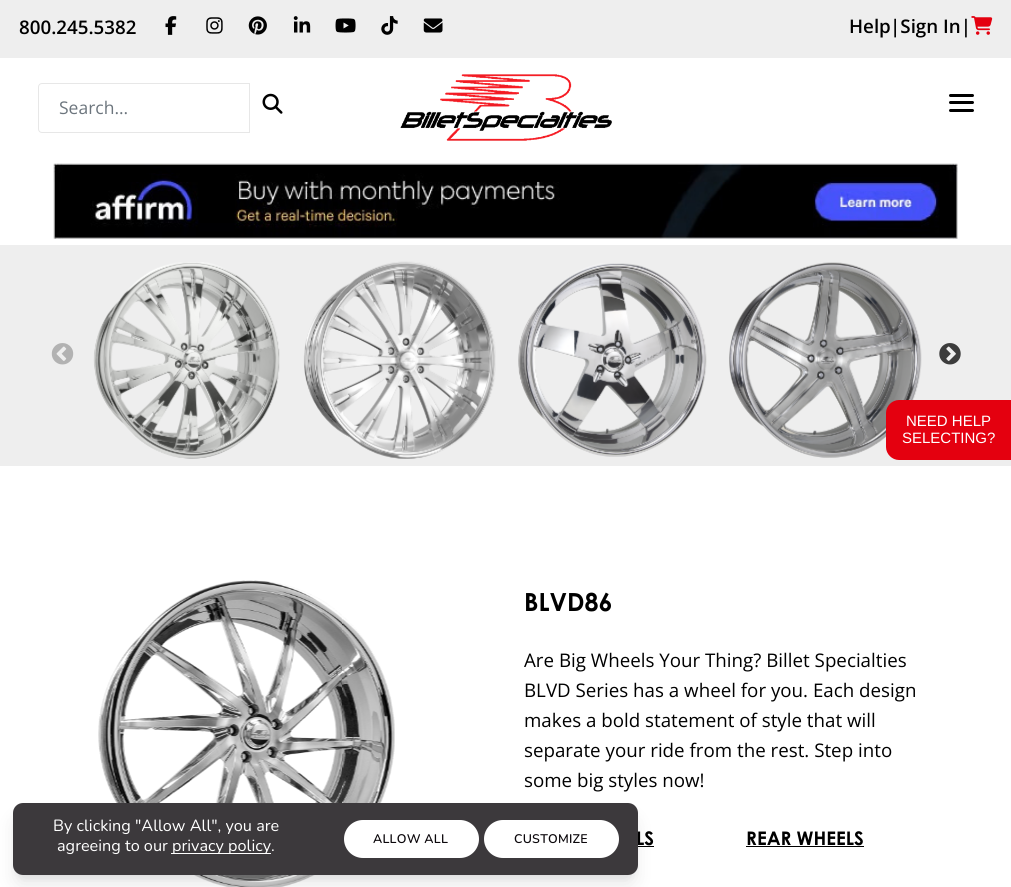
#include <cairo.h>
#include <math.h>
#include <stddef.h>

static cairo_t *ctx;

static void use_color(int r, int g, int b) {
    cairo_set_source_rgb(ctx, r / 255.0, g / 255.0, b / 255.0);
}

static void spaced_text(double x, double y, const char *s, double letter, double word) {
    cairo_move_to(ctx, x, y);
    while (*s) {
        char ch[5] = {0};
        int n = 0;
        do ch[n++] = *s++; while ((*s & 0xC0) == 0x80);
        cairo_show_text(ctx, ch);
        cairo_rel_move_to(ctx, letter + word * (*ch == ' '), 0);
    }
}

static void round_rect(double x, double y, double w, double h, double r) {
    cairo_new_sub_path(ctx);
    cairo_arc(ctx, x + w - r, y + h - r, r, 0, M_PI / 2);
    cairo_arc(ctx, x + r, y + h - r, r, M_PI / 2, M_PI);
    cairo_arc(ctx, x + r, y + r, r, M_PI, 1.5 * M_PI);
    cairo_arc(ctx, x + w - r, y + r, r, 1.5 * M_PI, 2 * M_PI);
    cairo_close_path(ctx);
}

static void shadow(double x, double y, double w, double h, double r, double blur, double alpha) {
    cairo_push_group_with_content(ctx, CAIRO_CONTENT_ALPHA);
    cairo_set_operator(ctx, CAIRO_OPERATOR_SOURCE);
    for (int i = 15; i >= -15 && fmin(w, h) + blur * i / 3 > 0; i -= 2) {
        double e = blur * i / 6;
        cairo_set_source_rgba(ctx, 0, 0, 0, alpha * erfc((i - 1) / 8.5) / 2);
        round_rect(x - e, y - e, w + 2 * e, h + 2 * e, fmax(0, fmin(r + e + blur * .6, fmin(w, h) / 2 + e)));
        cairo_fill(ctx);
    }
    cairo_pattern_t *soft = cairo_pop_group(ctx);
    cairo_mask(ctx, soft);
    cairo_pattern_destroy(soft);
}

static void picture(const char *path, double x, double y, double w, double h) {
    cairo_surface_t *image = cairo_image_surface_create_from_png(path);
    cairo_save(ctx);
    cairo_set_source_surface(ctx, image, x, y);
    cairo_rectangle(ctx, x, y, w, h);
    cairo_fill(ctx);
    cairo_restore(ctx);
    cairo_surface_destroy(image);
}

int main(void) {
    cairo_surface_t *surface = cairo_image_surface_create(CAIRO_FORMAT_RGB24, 1011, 887);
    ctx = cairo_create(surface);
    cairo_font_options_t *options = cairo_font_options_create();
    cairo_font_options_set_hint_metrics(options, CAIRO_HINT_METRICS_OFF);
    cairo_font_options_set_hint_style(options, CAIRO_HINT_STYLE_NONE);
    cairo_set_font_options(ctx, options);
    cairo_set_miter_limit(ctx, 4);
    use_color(255, 255, 255);
    cairo_paint(ctx);
    use_color(238, 238, 238);
    cairo_rectangle(ctx, 0, 0, 1011, 58);
    cairo_fill(ctx);
    cairo_select_font_face(ctx, "Open Sans SemiBold", CAIRO_FONT_SLANT_NORMAL, CAIRO_FONT_WEIGHT_NORMAL);
    cairo_set_font_size(ctx, 18.75);
    use_color(0, 0, 0);
    cairo_move_to(ctx, 19, 34);
    cairo_show_text(ctx, "800.245.5382");
    picture("img1.png", 165, 16, 12, 19);
    picture("img2.png", 206, 17, 17, 17);
    picture("img3.png", 248, 16, 19, 19);
    picture("img4.png", 293, 16, 18, 17);
    picture("img5.png", 335, 18, 21, 15);
    picture("img6.png", 381, 16, 17, 19);
    picture("img7.png", 423, 18, 20, 15);
    cairo_move_to(ctx, 849, 33);
    cairo_show_text(ctx, "Help");
    cairo_move_to(ctx, 890, 33);
    cairo_show_text(ctx, "|Sign In|");
    picture("img8.png", 971, 16, 22, 19);
    cairo_new_path(ctx);
    cairo_move_to(ctx, 42, 83.5);
    cairo_line_to(ctx, 249.5, 83.5);
    cairo_line_to(ctx, 249.5, 132.5);
    cairo_line_to(ctx, 42, 132.5);
    cairo_curve_to(ctx, 40, 132.5, 38.5, 131, 38.5, 129);
    cairo_line_to(ctx, 38.5, 87);
    cairo_curve_to(ctx, 38.5, 85, 40, 83.5, 42, 83.5);
    cairo_close_path(ctx);
    use_color(231, 231, 231);
    cairo_set_line_width(ctx, 1);
    cairo_stroke(ctx);
    cairo_select_font_face(ctx, "Open Sans", CAIRO_FONT_SLANT_NORMAL, CAIRO_FONT_WEIGHT_NORMAL);
    cairo_set_font_size(ctx, 17.5);
    use_color(108, 117, 125);
    cairo_move_to(ctx, 59, 114);
    cairo_show_text(ctx, "Search...");
    picture("img9.png", 262, 93, 21, 21);
    picture("img10.png", 400, 74, 212, 67);
    use_color(0, 0, 0);
    round_rect(949, 101, 25, 3, 1.5);
    cairo_fill(ctx);
    round_rect(949, 94, 25, 3, 1.5);
    cairo_fill(ctx);
    round_rect(949, 109, 25, 3, 1.5);
    cairo_fill(ctx);
    picture("img11.png", 53, 163, 905, 76);
    use_color(238, 238, 238);
    cairo_rectangle(ctx, 0, 245, 1011, 221);
    cairo_fill(ctx);
    picture("img12.png", 51, 343, 23, 22);
    picture("img13.png", 93, 262, 187, 197);
    picture("img14.png", 303, 261, 193, 198);
    picture("img15.png", 518, 263, 189, 194);
    picture("img16.png", 729, 262, 193, 196);
    picture("img17.png", 939, 343, 22, 22);
    use_color(228, 0, 15);
    cairo_new_path(ctx);
    cairo_move_to(ctx, 899, 400);
    cairo_line_to(ctx, 1011, 400);
    cairo_line_to(ctx, 1011, 460);
    cairo_line_to(ctx, 899, 460);
    cairo_curve_to(ctx, 892, 460, 886, 454, 886, 447);
    cairo_line_to(ctx, 886, 413);
    cairo_curve_to(ctx, 886, 406, 892, 400, 899, 400);
    cairo_close_path(ctx);
    cairo_fill(ctx);
    cairo_select_font_face(ctx, "Liberation Sans", CAIRO_FONT_SLANT_NORMAL, CAIRO_FONT_WEIGHT_NORMAL);
    cairo_set_font_size(ctx, 15);
    use_color(255, 255, 255);
    cairo_move_to(ctx, 906, 426);
    cairo_show_text(ctx, "NEED HELP");
    cairo_move_to(ctx, 902, 443);
    cairo_show_text(ctx, "SELECTING?");
    picture("img18.png", 98, 580, 297, 307);
    use_color(0, 0, 0);
    cairo_rectangle(ctx, 638, 846, 16, 1);
    cairo_fill(ctx);
    use_color(16, 24, 40);
    shadow(18, 813, 615, 62, 5, 4, 0.1);
    use_color(0, 0, 0);
    shadow(16, 819, 618, 65, 6, 9.5, 0.1);
    cairo_select_font_face(ctx, "Century Gothic", CAIRO_FONT_SLANT_NORMAL, CAIRO_FONT_WEIGHT_BOLD);
    cairo_set_font_size(ctx, 18.75);
    use_color(0, 0, 0);
    cairo_move_to(ctx, 636, 845);
    cairo_show_text(ctx, "LS");
    use_color(60, 57, 60);
    round_rect(13, 803, 625, 72, 10);
    cairo_fill(ctx);
    cairo_select_font_face(ctx, "Nunito", CAIRO_FONT_SLANT_NORMAL, CAIRO_FONT_WEIGHT_NORMAL);
    cairo_set_font_size(ctx, 16.25);
    use_color(255, 255, 255);
    cairo_move_to(ctx, 53, 831);
    cairo_show_text(ctx, "By clicking \"Allow All\", you are");
    cairo_move_to(ctx, 57, 851);
    cairo_show_text(ctx, "agreeing to our");
    cairo_rectangle(ctx, 171, 853, 100, 1);
    cairo_fill(ctx);
    cairo_move_to(ctx, 172, 851);
    cairo_show_text(ctx, "privacy policy.");
    round_rect(344, 820, 135, 38, 19);
    cairo_fill(ctx);
    cairo_select_font_face(ctx, "Nunito SemiBold", CAIRO_FONT_SLANT_NORMAL, CAIRO_FONT_WEIGHT_NORMAL);
    cairo_set_font_size(ctx, 12.5);
    use_color(11, 7, 11);
    spaced_text(373, 843, "ALLOW ALL", 0.25, 0);
    use_color(255, 255, 255);
    round_rect(484, 820, 135, 38, 19);
    cairo_fill(ctx);
    use_color(11, 7, 11);
    spaced_text(514, 843, "CUSTOMIZE", 0.25, 0);
    cairo_select_font_face(ctx, "Century Gothic", CAIRO_FONT_SLANT_NORMAL, CAIRO_FONT_WEIGHT_BOLD);
    cairo_set_font_size(ctx, 25);
    use_color(0, 0, 0);
    cairo_move_to(ctx, 524, 611);
    cairo_show_text(ctx, "BLVD86");
    cairo_select_font_face(ctx, "Open Sans", CAIRO_FONT_SLANT_NORMAL, CAIRO_FONT_WEIGHT_NORMAL);
    cairo_set_font_size(ctx, 18.75);
    cairo_move_to(ctx, 524, 667);
    cairo_show_text(ctx, "Are Big Wheels Your Thing? Billet Specialties");
    cairo_move_to(ctx, 524, 697);
    cairo_show_text(ctx, "BLVD Series has a wheel for you. Each design");
    cairo_move_to(ctx, 524, 727);
    cairo_show_text(ctx, "makes a bold statement of style that will");
    cairo_move_to(ctx, 524, 757);
    cairo_show_text(ctx, "separate your ride from the rest. Step into");
    cairo_move_to(ctx, 524, 787);
    cairo_show_text(ctx, "some big styles now!");
    cairo_select_font_face(ctx, "Century Gothic", CAIRO_FONT_SLANT_NORMAL, CAIRO_FONT_WEIGHT_BOLD);
    cairo_move_to(ctx, 746, 845);
    cairo_show_text(ctx, "REAR WHEELS");
    cairo_rectangle(ctx, 746, 846, 118, 1);
    cairo_fill(ctx);
    cairo_surface_write_to_png(surface, "result.png");
    cairo_font_options_destroy(options);
    cairo_destroy(ctx);
    cairo_surface_destroy(surface);
    return 0;
}
